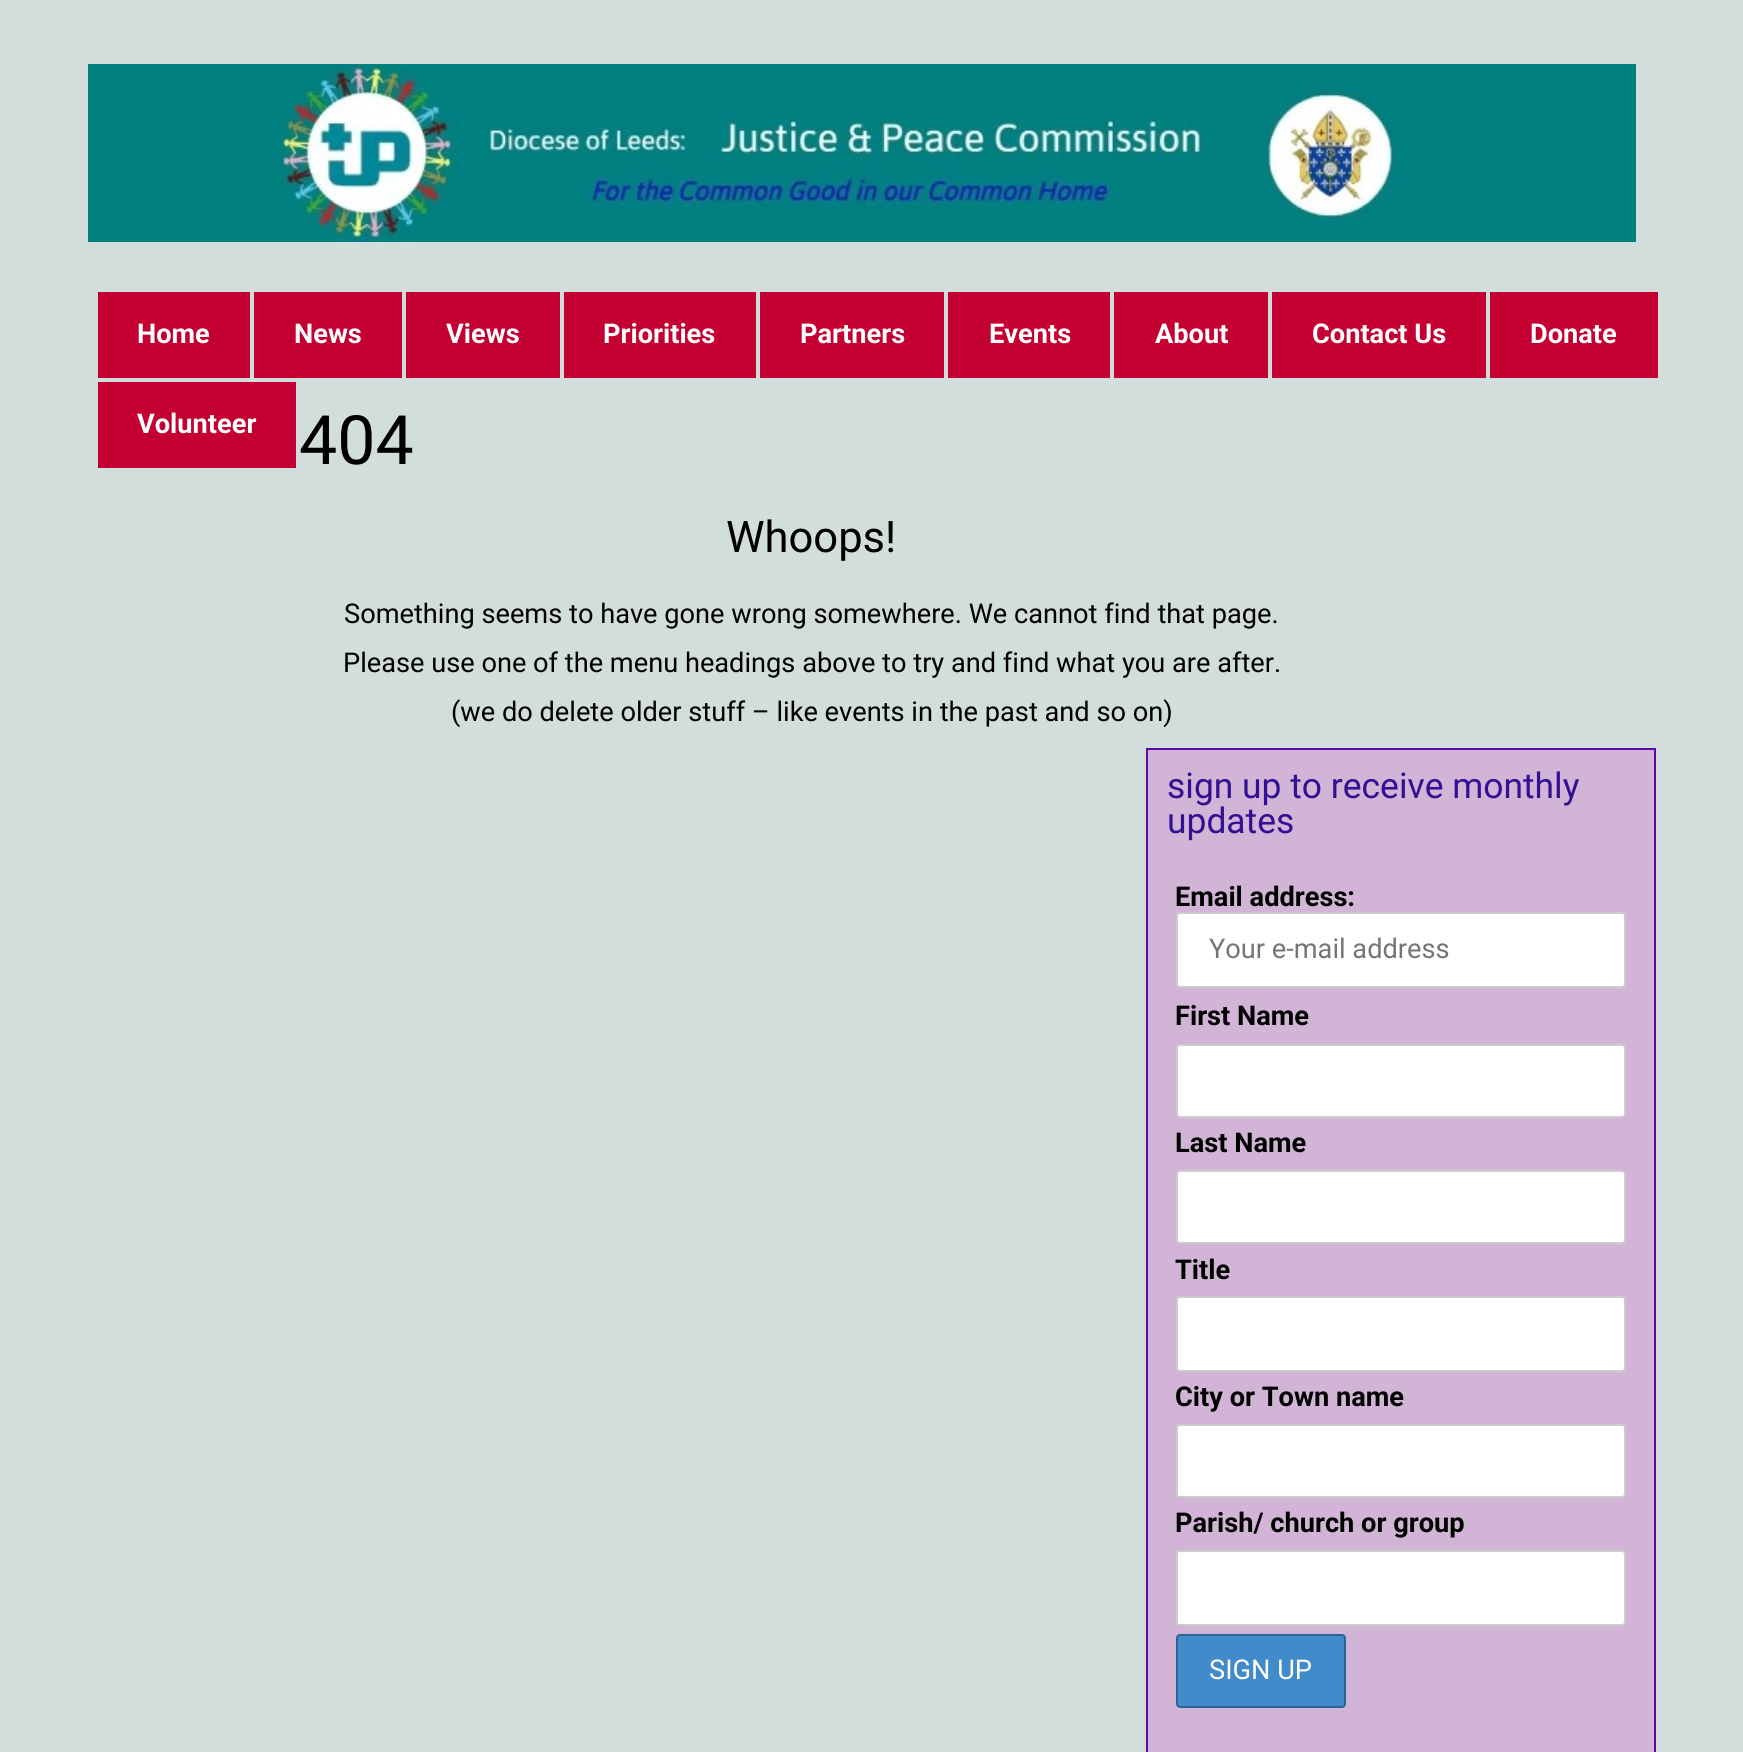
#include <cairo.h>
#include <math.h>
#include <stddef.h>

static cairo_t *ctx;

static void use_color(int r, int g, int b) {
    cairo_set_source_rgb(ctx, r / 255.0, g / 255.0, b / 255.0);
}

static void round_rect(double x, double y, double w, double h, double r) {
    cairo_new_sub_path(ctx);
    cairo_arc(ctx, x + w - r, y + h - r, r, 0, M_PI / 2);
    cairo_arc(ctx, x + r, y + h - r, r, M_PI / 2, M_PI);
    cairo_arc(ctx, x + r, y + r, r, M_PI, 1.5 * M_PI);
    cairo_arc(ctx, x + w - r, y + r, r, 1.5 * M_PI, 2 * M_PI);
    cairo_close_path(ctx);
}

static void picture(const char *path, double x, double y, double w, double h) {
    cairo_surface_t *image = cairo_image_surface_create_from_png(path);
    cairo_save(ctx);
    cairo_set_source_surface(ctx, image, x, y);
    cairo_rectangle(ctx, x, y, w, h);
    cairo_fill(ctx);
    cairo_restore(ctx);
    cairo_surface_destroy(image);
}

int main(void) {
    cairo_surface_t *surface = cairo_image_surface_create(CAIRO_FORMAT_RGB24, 1743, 1752);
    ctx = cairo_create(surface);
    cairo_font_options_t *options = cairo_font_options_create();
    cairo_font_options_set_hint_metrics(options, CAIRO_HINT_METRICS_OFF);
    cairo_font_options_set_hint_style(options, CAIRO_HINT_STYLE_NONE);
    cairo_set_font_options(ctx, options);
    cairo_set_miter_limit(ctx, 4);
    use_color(209, 222, 220);
    cairo_paint(ctx);
    picture("img1.png", 88, 64, 1548, 178);
    use_color(195, 0, 49);
    cairo_rectangle(ctx, 98, 292, 152, 86);
    cairo_fill(ctx);
    cairo_select_font_face(ctx, "Roboto", CAIRO_FONT_SLANT_NORMAL, CAIRO_FONT_WEIGHT_BOLD);
    cairo_set_font_size(ctx, 27.2);
    use_color(255, 255, 255);
    cairo_move_to(ctx, 137, 343);
    cairo_show_text(ctx, "Home");
    use_color(195, 0, 49);
    cairo_rectangle(ctx, 254, 292, 148, 86);
    cairo_fill(ctx);
    use_color(255, 255, 255);
    cairo_move_to(ctx, 294, 343);
    cairo_show_text(ctx, "News");
    use_color(195, 0, 49);
    cairo_rectangle(ctx, 406, 292, 154, 86);
    cairo_fill(ctx);
    use_color(255, 255, 255);
    cairo_move_to(ctx, 446, 343);
    cairo_show_text(ctx, "Views");
    use_color(195, 0, 49);
    cairo_rectangle(ctx, 564, 292, 192, 86);
    cairo_fill(ctx);
    use_color(255, 255, 255);
    cairo_move_to(ctx, 603, 343);
    cairo_show_text(ctx, "Priorities");
    use_color(195, 0, 49);
    cairo_rectangle(ctx, 760, 292, 184, 86);
    cairo_fill(ctx);
    use_color(255, 255, 255);
    cairo_move_to(ctx, 800, 343);
    cairo_show_text(ctx, "Partners");
    use_color(195, 0, 49);
    cairo_rectangle(ctx, 948, 292, 162, 86);
    cairo_fill(ctx);
    use_color(255, 255, 255);
    cairo_move_to(ctx, 989, 343);
    cairo_show_text(ctx, "Events");
    use_color(195, 0, 49);
    cairo_rectangle(ctx, 1114, 292, 154, 86);
    cairo_fill(ctx);
    use_color(255, 255, 255);
    cairo_move_to(ctx, 1155, 343);
    cairo_show_text(ctx, "About");
    use_color(195, 0, 49);
    cairo_rectangle(ctx, 1272, 292, 214, 86);
    cairo_fill(ctx);
    use_color(255, 255, 255);
    cairo_move_to(ctx, 1312, 343);
    cairo_show_text(ctx, "Contact Us");
    use_color(195, 0, 49);
    cairo_rectangle(ctx, 1490, 292, 168, 86);
    cairo_fill(ctx);
    use_color(255, 255, 255);
    cairo_move_to(ctx, 1530, 343);
    cairo_show_text(ctx, "Donate");
    use_color(195, 0, 49);
    cairo_rectangle(ctx, 98, 382, 198, 86);
    cairo_fill(ctx);
    use_color(255, 255, 255);
    cairo_move_to(ctx, 137, 433);
    cairo_show_text(ctx, "Volunteer");
    cairo_select_font_face(ctx, "Roboto", CAIRO_FONT_SLANT_NORMAL, CAIRO_FONT_WEIGHT_NORMAL);
    cairo_set_font_size(ctx, 68);
    use_color(0, 0, 0);
    cairo_move_to(ctx, 299, 464);
    cairo_show_text(ctx, "404");
    cairo_set_font_size(ctx, 43.5);
    cairo_move_to(ctx, 726, 552);
    cairo_show_text(ctx, "Whoops!");
    cairo_set_font_size(ctx, 27.2);
    cairo_move_to(ctx, 344, 623);
    cairo_show_text(ctx, "Something seems to have gone wrong somewhere. We cannot find that page.");
    cairo_move_to(ctx, 343, 672);
    cairo_show_text(ctx, "Please use one of the menu headings above to try and find what you are after.");
    cairo_move_to(ctx, 451, 721);
    cairo_show_text(ctx, "(we do delete older stuff – like events in the past and so on)");
    use_color(209, 180, 214);
    cairo_rectangle(ctx, 1147, 749, 508, 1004);
    cairo_fill_preserve(ctx);
    use_color(94, 9, 168);
    cairo_stroke(ctx);
    cairo_set_font_size(ctx, 35.4);
    use_color(49, 16, 147);
    cairo_move_to(ctx, 1167, 798);
    cairo_show_text(ctx, "sign up to receive monthly");
    cairo_move_to(ctx, 1167, 833);
    cairo_show_text(ctx, "updates");
    cairo_select_font_face(ctx, "Roboto", CAIRO_FONT_SLANT_NORMAL, CAIRO_FONT_WEIGHT_BOLD);
    cairo_set_font_size(ctx, 27.2);
    use_color(0, 0, 0);
    cairo_move_to(ctx, 1175, 906);
    cairo_show_text(ctx, "Email address:");
    use_color(255, 255, 255);
    round_rect(1177, 913, 448, 74, 3);
    cairo_fill_preserve(ctx);
    use_color(204, 204, 204);
    cairo_stroke(ctx);
    cairo_select_font_face(ctx, "Roboto", CAIRO_FONT_SLANT_NORMAL, CAIRO_FONT_WEIGHT_NORMAL);
    use_color(117, 117, 117);
    cairo_move_to(ctx, 1209, 958);
    cairo_show_text(ctx, "Your e-mail address");
    cairo_select_font_face(ctx, "Roboto", CAIRO_FONT_SLANT_NORMAL, CAIRO_FONT_WEIGHT_BOLD);
    use_color(0, 0, 0);
    cairo_move_to(ctx, 1175, 1025);
    cairo_show_text(ctx, "First Name");
    use_color(255, 255, 255);
    round_rect(1177, 1045, 448, 72, 3);
    cairo_fill_preserve(ctx);
    use_color(204, 204, 204);
    cairo_stroke(ctx);
    use_color(0, 0, 0);
    cairo_move_to(ctx, 1175, 1152);
    cairo_show_text(ctx, "Last Name");
    use_color(255, 255, 255);
    round_rect(1177, 1171, 448, 72, 3);
    cairo_fill_preserve(ctx);
    use_color(204, 204, 204);
    cairo_stroke(ctx);
    use_color(0, 0, 0);
    cairo_move_to(ctx, 1175, 1279);
    cairo_show_text(ctx, "Title");
    use_color(255, 255, 255);
    round_rect(1177, 1297, 448, 74, 3);
    cairo_fill_preserve(ctx);
    use_color(204, 204, 204);
    cairo_stroke(ctx);
    use_color(0, 0, 0);
    cairo_move_to(ctx, 1175, 1406);
    cairo_show_text(ctx, "City or Town name");
    use_color(255, 255, 255);
    round_rect(1177, 1425, 448, 72, 3);
    cairo_fill_preserve(ctx);
    use_color(204, 204, 204);
    cairo_stroke(ctx);
    use_color(0, 0, 0);
    cairo_move_to(ctx, 1175, 1532);
    cairo_show_text(ctx, "Parish/ church or group");
    use_color(255, 255, 255);
    round_rect(1177, 1551, 448, 74, 3);
    cairo_fill_preserve(ctx);
    use_color(204, 204, 204);
    cairo_stroke(ctx);
    use_color(66, 139, 202);
    round_rect(1177, 1635, 168, 72, 3);
    cairo_fill_preserve(ctx);
    use_color(42, 100, 150);
    cairo_stroke(ctx);
    cairo_select_font_face(ctx, "Roboto", CAIRO_FONT_SLANT_NORMAL, CAIRO_FONT_WEIGHT_NORMAL);
    use_color(255, 255, 255);
    cairo_move_to(ctx, 1209, 1679);
    cairo_show_text(ctx, "SIGN UP");
    cairo_surface_write_to_png(surface, "result.png");
    cairo_font_options_destroy(options);
    cairo_destroy(ctx);
    cairo_surface_destroy(surface);
    return 0;
}
